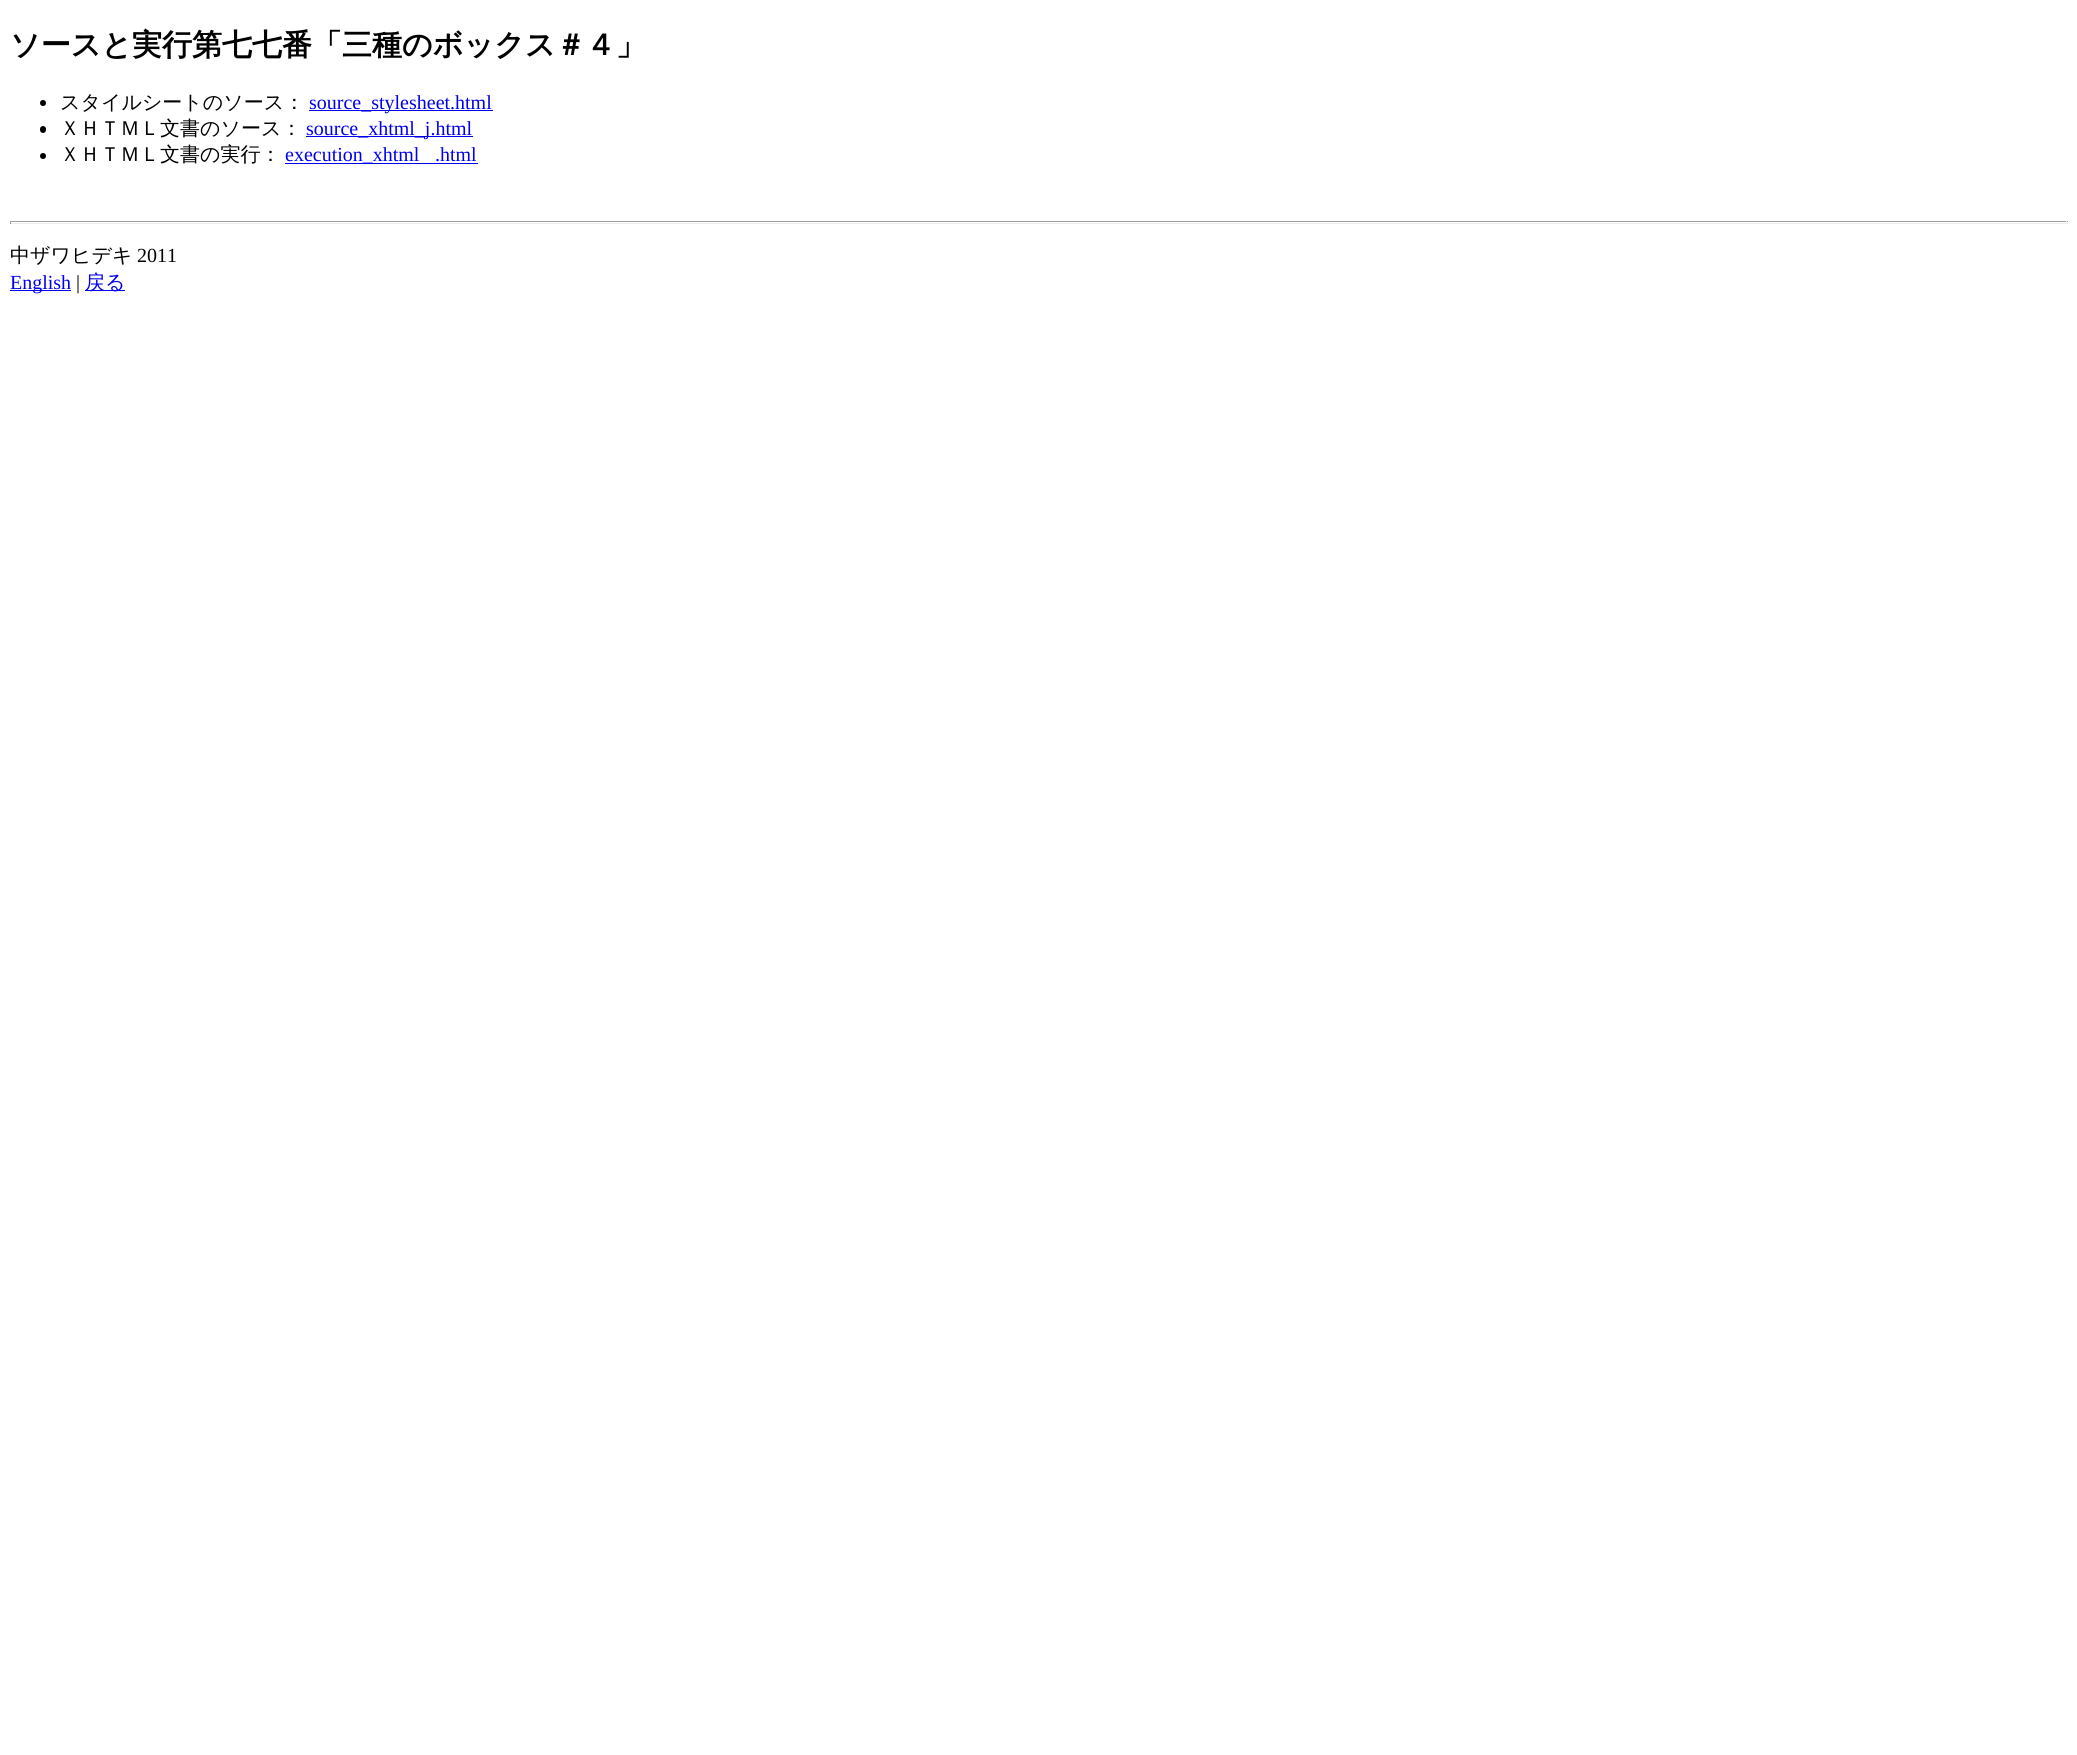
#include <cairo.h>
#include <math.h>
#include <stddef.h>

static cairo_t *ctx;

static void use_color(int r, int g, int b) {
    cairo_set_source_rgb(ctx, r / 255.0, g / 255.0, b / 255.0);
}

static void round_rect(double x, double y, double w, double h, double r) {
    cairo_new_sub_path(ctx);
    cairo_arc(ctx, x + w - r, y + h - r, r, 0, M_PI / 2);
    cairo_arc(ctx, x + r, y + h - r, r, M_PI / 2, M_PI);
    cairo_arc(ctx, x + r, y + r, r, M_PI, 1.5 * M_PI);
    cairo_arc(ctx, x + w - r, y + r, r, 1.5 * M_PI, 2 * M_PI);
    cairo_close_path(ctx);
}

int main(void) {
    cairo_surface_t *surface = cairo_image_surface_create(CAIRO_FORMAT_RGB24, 2077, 1755);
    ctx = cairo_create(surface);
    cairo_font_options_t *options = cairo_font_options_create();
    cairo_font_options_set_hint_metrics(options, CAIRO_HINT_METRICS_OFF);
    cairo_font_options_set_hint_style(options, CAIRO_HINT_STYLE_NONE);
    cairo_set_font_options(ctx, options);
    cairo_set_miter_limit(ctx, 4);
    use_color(255, 255, 255);
    cairo_paint(ctx);
    cairo_select_font_face(ctx, "WenQuanYi Zen Hei", CAIRO_FONT_SLANT_NORMAL, CAIRO_FONT_WEIGHT_BOLD);
    cairo_set_font_size(ctx, 30);
    use_color(0, 0, 0);
    cairo_move_to(ctx, 10, 55);
    cairo_show_text(ctx, "ソースと実行第七七番「三種のボックス＃４」");
    cairo_new_path(ctx);
    cairo_arc(ctx, 43, 103, 3, 0, 2 * M_PI);
    cairo_fill(ctx);
    cairo_select_font_face(ctx, "WenQuanYi Zen Hei Medium", CAIRO_FONT_SLANT_NORMAL, CAIRO_FONT_WEIGHT_NORMAL);
    cairo_set_font_size(ctx, 20);
    cairo_move_to(ctx, 60, 109);
    cairo_show_text(ctx, "スタイルシートのソース：");
    use_color(0, 0, 238);
    cairo_rectangle(ctx, 309, 110, 184, 1);
    cairo_fill(ctx);
    cairo_select_font_face(ctx, "Liberation Serif", CAIRO_FONT_SLANT_NORMAL, CAIRO_FONT_WEIGHT_NORMAL);
    cairo_move_to(ctx, 309, 109);
    cairo_show_text(ctx, "source_stylesheet.html");
    use_color(0, 0, 0);
    round_rect(40, 126, 6, 7, 3);
    cairo_fill(ctx);
    cairo_select_font_face(ctx, "WenQuanYi Zen Hei Medium", CAIRO_FONT_SLANT_NORMAL, CAIRO_FONT_WEIGHT_NORMAL);
    cairo_move_to(ctx, 60, 135);
    cairo_show_text(ctx, "ＸＨＴＭＬ文書のソース：");
    use_color(0, 0, 238);
    cairo_rectangle(ctx, 306, 136, 167, 1);
    cairo_fill(ctx);
    cairo_select_font_face(ctx, "Liberation Serif", CAIRO_FONT_SLANT_NORMAL, CAIRO_FONT_WEIGHT_NORMAL);
    cairo_move_to(ctx, 306, 135);
    cairo_show_text(ctx, "source_xhtml_j.html");
    use_color(0, 0, 0);
    cairo_new_path(ctx);
    cairo_arc(ctx, 43, 156, 3, 0, 2 * M_PI);
    cairo_fill(ctx);
    cairo_select_font_face(ctx, "WenQuanYi Zen Hei Medium", CAIRO_FONT_SLANT_NORMAL, CAIRO_FONT_WEIGHT_NORMAL);
    cairo_move_to(ctx, 60, 161);
    cairo_show_text(ctx, "ＸＨＴＭＬ文書の実行：");
    use_color(0, 0, 238);
    cairo_rectangle(ctx, 285, 163, 193, 1);
    cairo_fill(ctx);
    cairo_select_font_face(ctx, "Liberation Serif", CAIRO_FONT_SLANT_NORMAL, CAIRO_FONT_WEIGHT_NORMAL);
    cairo_move_to(ctx, 285, 161);
    cairo_show_text(ctx, "execution_xhtml");
    cairo_move_to(ctx, 435, 161);
    cairo_show_text(ctx, ".html");
    use_color(159, 159, 159);
    cairo_rectangle(ctx, 10, 221, 2058, 1);
    cairo_fill(ctx);
    use_color(238, 238, 238);
    cairo_rectangle(ctx, 2066, 221, 1, 3);
    cairo_fill(ctx);
    cairo_rectangle(ctx, 10, 223, 2058, 1);
    cairo_fill(ctx);
    use_color(159, 159, 159);
    cairo_rectangle(ctx, 10, 221, 1, 3);
    cairo_fill(ctx);
    cairo_select_font_face(ctx, "WenQuanYi Zen Hei Medium", CAIRO_FONT_SLANT_NORMAL, CAIRO_FONT_WEIGHT_NORMAL);
    use_color(0, 0, 0);
    cairo_move_to(ctx, 10, 262);
    cairo_show_text(ctx, "中ザワヒデキ");
    cairo_select_font_face(ctx, "Liberation Serif", CAIRO_FONT_SLANT_NORMAL, CAIRO_FONT_WEIGHT_NORMAL);
    cairo_move_to(ctx, 137, 262);
    cairo_show_text(ctx, "2011");
    use_color(0, 0, 238);
    cairo_rectangle(ctx, 10, 290, 61, 1);
    cairo_fill(ctx);
    cairo_move_to(ctx, 10, 289);
    cairo_show_text(ctx, "English");
    use_color(0, 0, 0);
    cairo_move_to(ctx, 76, 289);
    cairo_show_text(ctx, "|");
    use_color(0, 0, 238);
    cairo_rectangle(ctx, 85, 290, 40, 1);
    cairo_fill(ctx);
    cairo_select_font_face(ctx, "WenQuanYi Zen Hei Medium", CAIRO_FONT_SLANT_NORMAL, CAIRO_FONT_WEIGHT_NORMAL);
    cairo_move_to(ctx, 85, 289);
    cairo_show_text(ctx, "戻る");
    cairo_surface_write_to_png(surface, "result.png");
    cairo_font_options_destroy(options);
    cairo_destroy(ctx);
    cairo_surface_destroy(surface);
    return 0;
}
